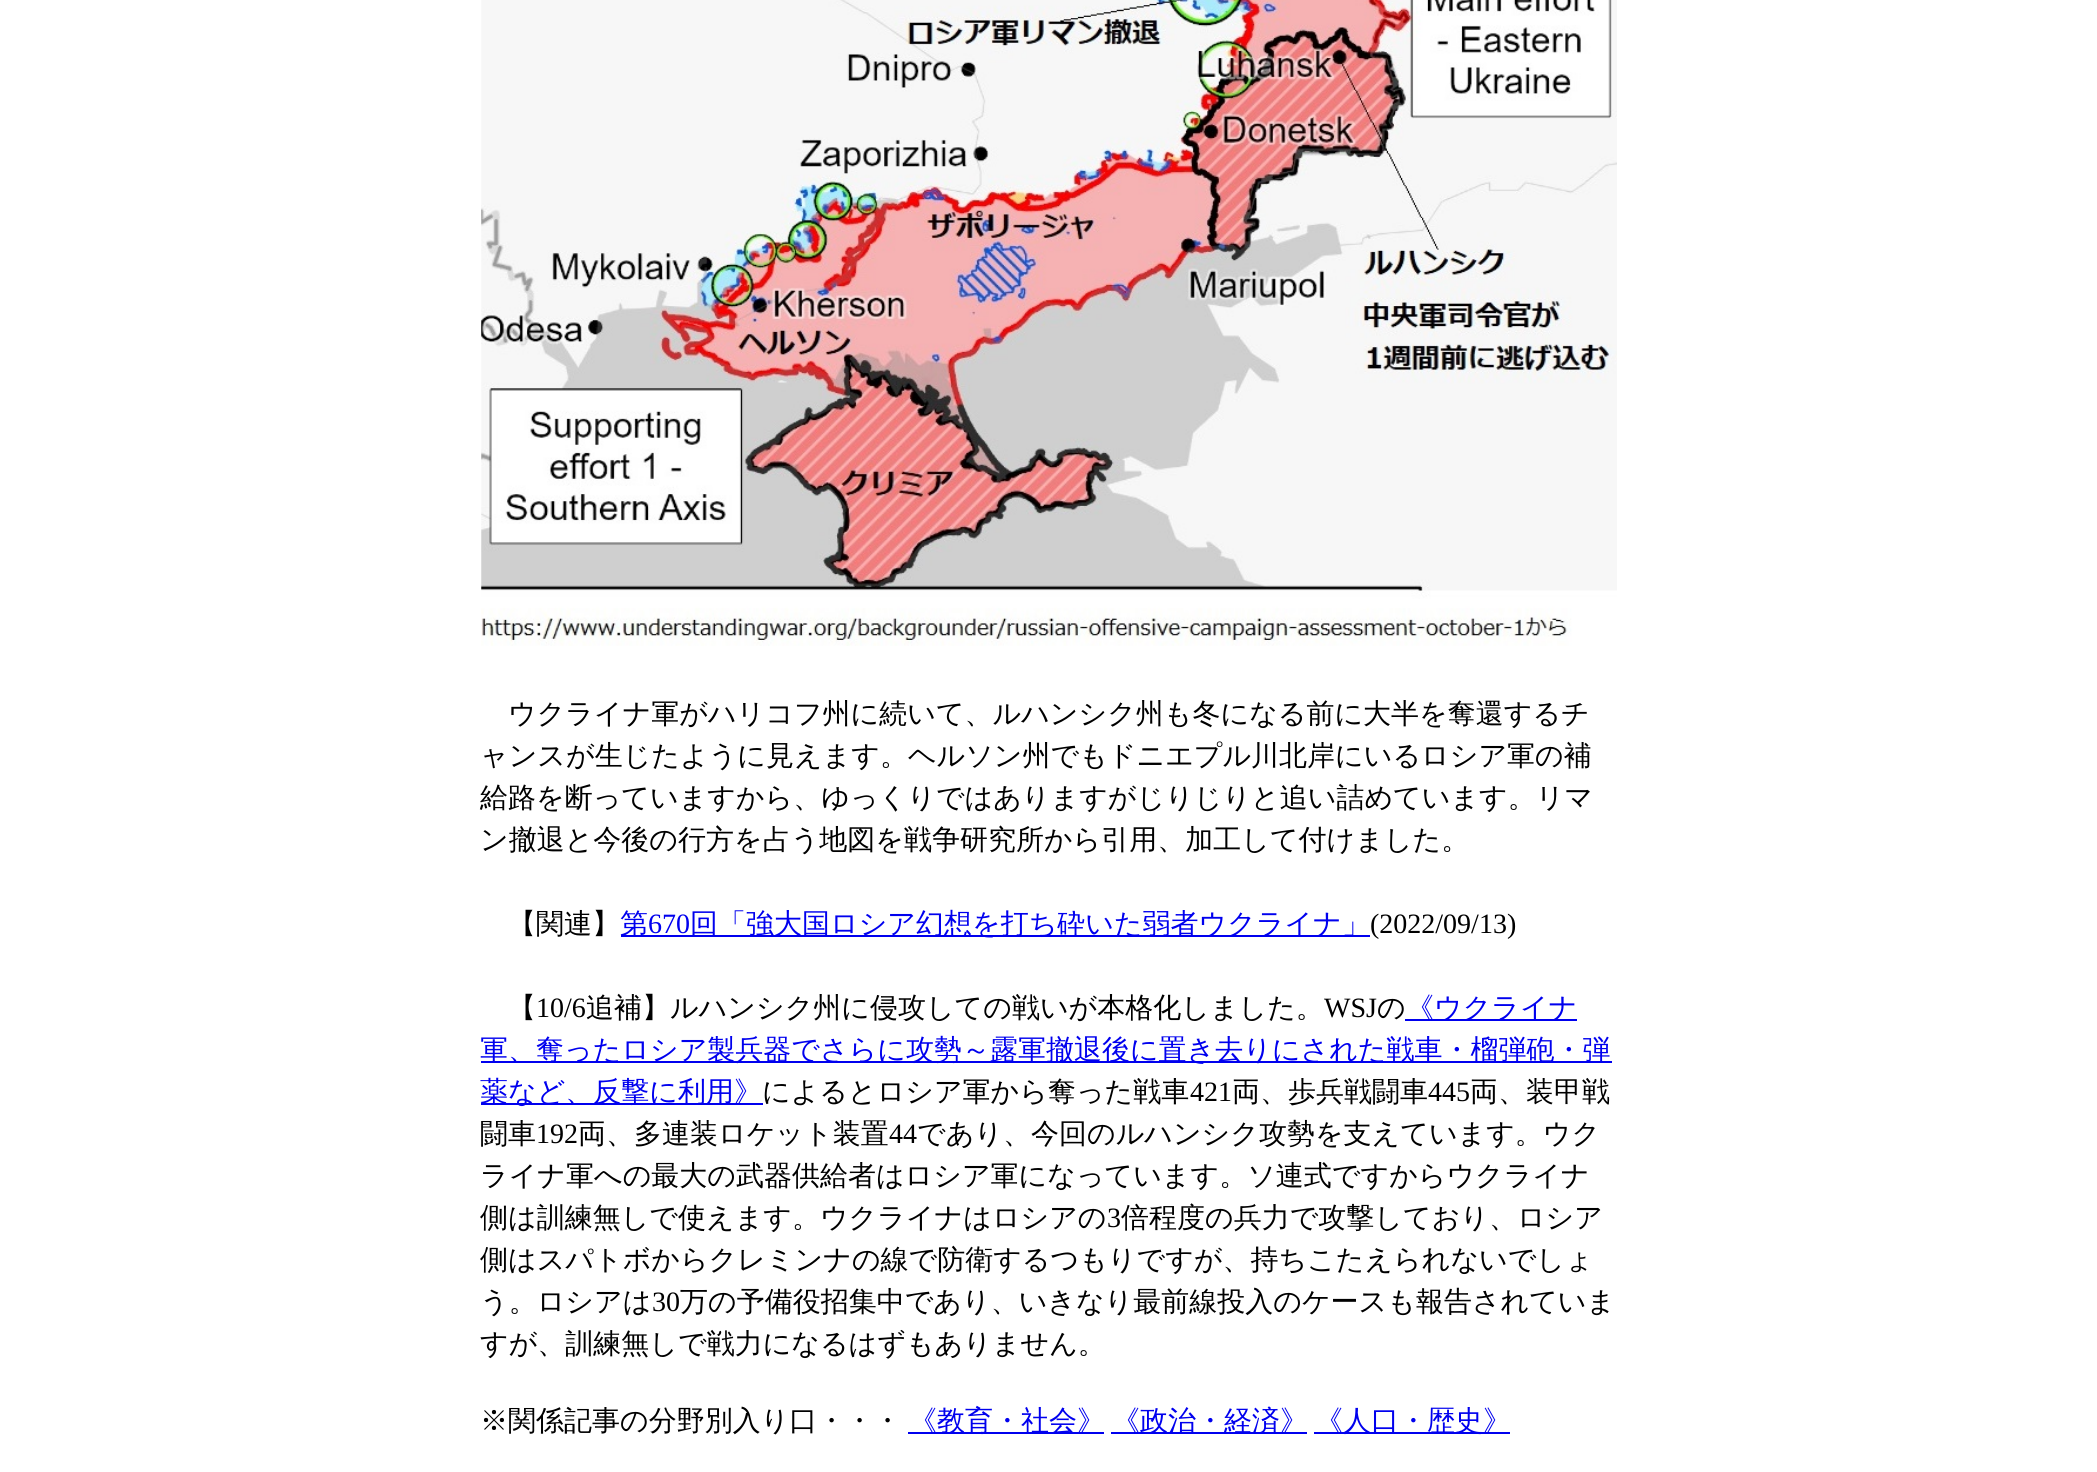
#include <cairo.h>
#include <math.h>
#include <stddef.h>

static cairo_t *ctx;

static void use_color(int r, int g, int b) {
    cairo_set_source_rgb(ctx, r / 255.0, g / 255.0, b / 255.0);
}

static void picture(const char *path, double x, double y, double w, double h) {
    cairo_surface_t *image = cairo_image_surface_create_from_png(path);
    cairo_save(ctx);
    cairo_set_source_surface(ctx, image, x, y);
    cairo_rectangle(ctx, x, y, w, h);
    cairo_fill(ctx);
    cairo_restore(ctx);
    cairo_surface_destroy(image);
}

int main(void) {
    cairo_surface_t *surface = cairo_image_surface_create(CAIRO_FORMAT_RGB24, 2097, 1472);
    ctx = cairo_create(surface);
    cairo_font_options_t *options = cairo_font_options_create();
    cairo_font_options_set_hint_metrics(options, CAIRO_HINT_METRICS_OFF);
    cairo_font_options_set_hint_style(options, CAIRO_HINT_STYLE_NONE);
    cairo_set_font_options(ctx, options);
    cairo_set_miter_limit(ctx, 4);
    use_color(255, 255, 255);
    cairo_paint(ctx);
    picture("img1.png", 481, 0, 1136, 646);
    cairo_select_font_face(ctx, "WenQuanYi Zen Hei Medium", CAIRO_FONT_SLANT_NORMAL, CAIRO_FONT_WEIGHT_NORMAL);
    cairo_set_font_size(ctx, 28);
    use_color(0, 0, 0);
    cairo_move_to(ctx, 508, 723);
    cairo_show_text(ctx, "ウクライナ軍がハリコフ州に続いて、ルハンシク州も冬になる前に大半を奪還するチ");
    cairo_move_to(ctx, 480, 765);
    cairo_show_text(ctx, "ャンスが生じたように見えます。ヘルソン州でもドニエプル川北岸にいるロシア軍の補");
    cairo_move_to(ctx, 480, 807);
    cairo_show_text(ctx, "給路を断っていますから、ゆっくりではありますがじりじりと追い詰めています。リマ");
    cairo_move_to(ctx, 480, 849);
    cairo_show_text(ctx, "ン撤退と今後の行方を占う地図を戦争研究所から引用、加工して付けました。");
    cairo_move_to(ctx, 508, 933);
    cairo_show_text(ctx, "【関連】");
    use_color(0, 0, 238);
    cairo_rectangle(ctx, 621, 935, 749, 2);
    cairo_fill(ctx);
    cairo_move_to(ctx, 620, 933);
    cairo_show_text(ctx, "第");
    cairo_select_font_face(ctx, "Liberation Serif", CAIRO_FONT_SLANT_NORMAL, CAIRO_FONT_WEIGHT_NORMAL);
    cairo_move_to(ctx, 648, 933);
    cairo_show_text(ctx, "670");
    cairo_select_font_face(ctx, "WenQuanYi Zen Hei Medium", CAIRO_FONT_SLANT_NORMAL, CAIRO_FONT_WEIGHT_NORMAL);
    cairo_move_to(ctx, 690, 933);
    cairo_show_text(ctx, "回「強大国ロシア幻想を打ち砕いた弱者ウクライナ」");
    cairo_select_font_face(ctx, "Liberation Serif", CAIRO_FONT_SLANT_NORMAL, CAIRO_FONT_WEIGHT_NORMAL);
    use_color(0, 0, 0);
    cairo_move_to(ctx, 1370, 933);
    cairo_show_text(ctx, "(2022/09/13)");
    cairo_select_font_face(ctx, "WenQuanYi Zen Hei Medium", CAIRO_FONT_SLANT_NORMAL, CAIRO_FONT_WEIGHT_NORMAL);
    cairo_move_to(ctx, 508, 1017);
    cairo_show_text(ctx, "【");
    cairo_select_font_face(ctx, "Liberation Serif", CAIRO_FONT_SLANT_NORMAL, CAIRO_FONT_WEIGHT_NORMAL);
    cairo_move_to(ctx, 536, 1017);
    cairo_show_text(ctx, "10/6");
    cairo_select_font_face(ctx, "WenQuanYi Zen Hei Medium", CAIRO_FONT_SLANT_NORMAL, CAIRO_FONT_WEIGHT_NORMAL);
    cairo_move_to(ctx, 586, 1017);
    cairo_show_text(ctx, "追補】ルハンシク州に侵攻しての戦いが本格化しました。");
    cairo_select_font_face(ctx, "Liberation Serif", CAIRO_FONT_SLANT_NORMAL, CAIRO_FONT_WEIGHT_NORMAL);
    cairo_move_to(ctx, 1324, 1017);
    cairo_show_text(ctx, "WSJ");
    cairo_select_font_face(ctx, "WenQuanYi Zen Hei Medium", CAIRO_FONT_SLANT_NORMAL, CAIRO_FONT_WEIGHT_NORMAL);
    cairo_move_to(ctx, 1377, 1017);
    cairo_show_text(ctx, "の");
    use_color(0, 0, 238);
    cairo_rectangle(ctx, 1405, 1019, 172, 2);
    cairo_fill(ctx);
    cairo_move_to(ctx, 1406, 1017);
    cairo_show_text(ctx, "《ウクライナ");
    cairo_rectangle(ctx, 481, 1061, 1131, 2);
    cairo_fill(ctx);
    cairo_move_to(ctx, 480, 1059);
    cairo_show_text(ctx, "軍、奪ったロシア製兵器でさらに攻勢～露軍撤退後に置き去りにされた戦車・榴弾砲・弾");
    cairo_rectangle(ctx, 481, 1103, 282, 2);
    cairo_fill(ctx);
    cairo_move_to(ctx, 480, 1101);
    cairo_show_text(ctx, "薬など、反撃に利用》");
    use_color(0, 0, 0);
    cairo_move_to(ctx, 762, 1101);
    cairo_show_text(ctx, "によるとロシア軍から奪った戦車");
    cairo_select_font_face(ctx, "Liberation Serif", CAIRO_FONT_SLANT_NORMAL, CAIRO_FONT_WEIGHT_NORMAL);
    cairo_move_to(ctx, 1190, 1101);
    cairo_show_text(ctx, "421");
    cairo_select_font_face(ctx, "WenQuanYi Zen Hei Medium", CAIRO_FONT_SLANT_NORMAL, CAIRO_FONT_WEIGHT_NORMAL);
    cairo_move_to(ctx, 1232, 1101);
    cairo_show_text(ctx, "両、歩兵戦闘車");
    cairo_select_font_face(ctx, "Liberation Serif", CAIRO_FONT_SLANT_NORMAL, CAIRO_FONT_WEIGHT_NORMAL);
    cairo_move_to(ctx, 1428, 1101);
    cairo_show_text(ctx, "445");
    cairo_select_font_face(ctx, "WenQuanYi Zen Hei Medium", CAIRO_FONT_SLANT_NORMAL, CAIRO_FONT_WEIGHT_NORMAL);
    cairo_move_to(ctx, 1470, 1101);
    cairo_show_text(ctx, "両、装甲戦");
    cairo_move_to(ctx, 480, 1143);
    cairo_show_text(ctx, "闘車");
    cairo_select_font_face(ctx, "Liberation Serif", CAIRO_FONT_SLANT_NORMAL, CAIRO_FONT_WEIGHT_NORMAL);
    cairo_move_to(ctx, 536, 1143);
    cairo_show_text(ctx, "192");
    cairo_select_font_face(ctx, "WenQuanYi Zen Hei Medium", CAIRO_FONT_SLANT_NORMAL, CAIRO_FONT_WEIGHT_NORMAL);
    cairo_move_to(ctx, 578, 1143);
    cairo_show_text(ctx, "両、多連装ロケット装置");
    cairo_select_font_face(ctx, "Liberation Serif", CAIRO_FONT_SLANT_NORMAL, CAIRO_FONT_WEIGHT_NORMAL);
    cairo_move_to(ctx, 889, 1143);
    cairo_show_text(ctx, "44");
    cairo_select_font_face(ctx, "WenQuanYi Zen Hei Medium", CAIRO_FONT_SLANT_NORMAL, CAIRO_FONT_WEIGHT_NORMAL);
    cairo_move_to(ctx, 917, 1143);
    cairo_show_text(ctx, "であり、今回のルハンシク攻勢を支えています。ウク");
    cairo_move_to(ctx, 480, 1185);
    cairo_show_text(ctx, "ライナ軍への最大の武器供給者はロシア軍になっています。ソ連式ですからウクライナ");
    cairo_move_to(ctx, 480, 1227);
    cairo_show_text(ctx, "側は訓練無しで使えます。ウクライナはロシアの");
    cairo_select_font_face(ctx, "Liberation Serif", CAIRO_FONT_SLANT_NORMAL, CAIRO_FONT_WEIGHT_NORMAL);
    cairo_move_to(ctx, 1107, 1227);
    cairo_show_text(ctx, "3");
    cairo_select_font_face(ctx, "WenQuanYi Zen Hei Medium", CAIRO_FONT_SLANT_NORMAL, CAIRO_FONT_WEIGHT_NORMAL);
    cairo_move_to(ctx, 1121, 1227);
    cairo_show_text(ctx, "倍程度の兵力で攻撃しており、ロシア");
    cairo_move_to(ctx, 480, 1269);
    cairo_show_text(ctx, "側はスパトボからクレミンナの線で防衛するつもりですが、持ちこたえられないでしょ");
    cairo_move_to(ctx, 480, 1311);
    cairo_show_text(ctx, "う。ロシアは");
    cairo_select_font_face(ctx, "Liberation Serif", CAIRO_FONT_SLANT_NORMAL, CAIRO_FONT_WEIGHT_NORMAL);
    cairo_move_to(ctx, 652, 1311);
    cairo_show_text(ctx, "30");
    cairo_select_font_face(ctx, "WenQuanYi Zen Hei Medium", CAIRO_FONT_SLANT_NORMAL, CAIRO_FONT_WEIGHT_NORMAL);
    cairo_move_to(ctx, 680, 1311);
    cairo_show_text(ctx, "万の予備役招集中であり、いきなり最前線投入のケースも報告されていま");
    cairo_move_to(ctx, 480, 1353);
    cairo_show_text(ctx, "すが、訓練無しで戦力になるはずもありません。");
    cairo_move_to(ctx, 480, 1430);
    cairo_show_text(ctx, "※関係記事の分野別入り口・・・");
    use_color(0, 0, 238);
    cairo_rectangle(ctx, 908, 1432, 196, 2);
    cairo_fill(ctx);
    cairo_move_to(ctx, 909, 1430);
    cairo_show_text(ctx, "《教育・社会》");
    cairo_rectangle(ctx, 1111, 1432, 196, 2);
    cairo_fill(ctx);
    cairo_move_to(ctx, 1112, 1430);
    cairo_show_text(ctx, "《政治・経済》");
    cairo_rectangle(ctx, 1314, 1432, 196, 2);
    cairo_fill(ctx);
    cairo_move_to(ctx, 1315, 1430);
    cairo_show_text(ctx, "《人口・歴史》");
    cairo_surface_write_to_png(surface, "result.png");
    cairo_font_options_destroy(options);
    cairo_destroy(ctx);
    cairo_surface_destroy(surface);
    return 0;
}
